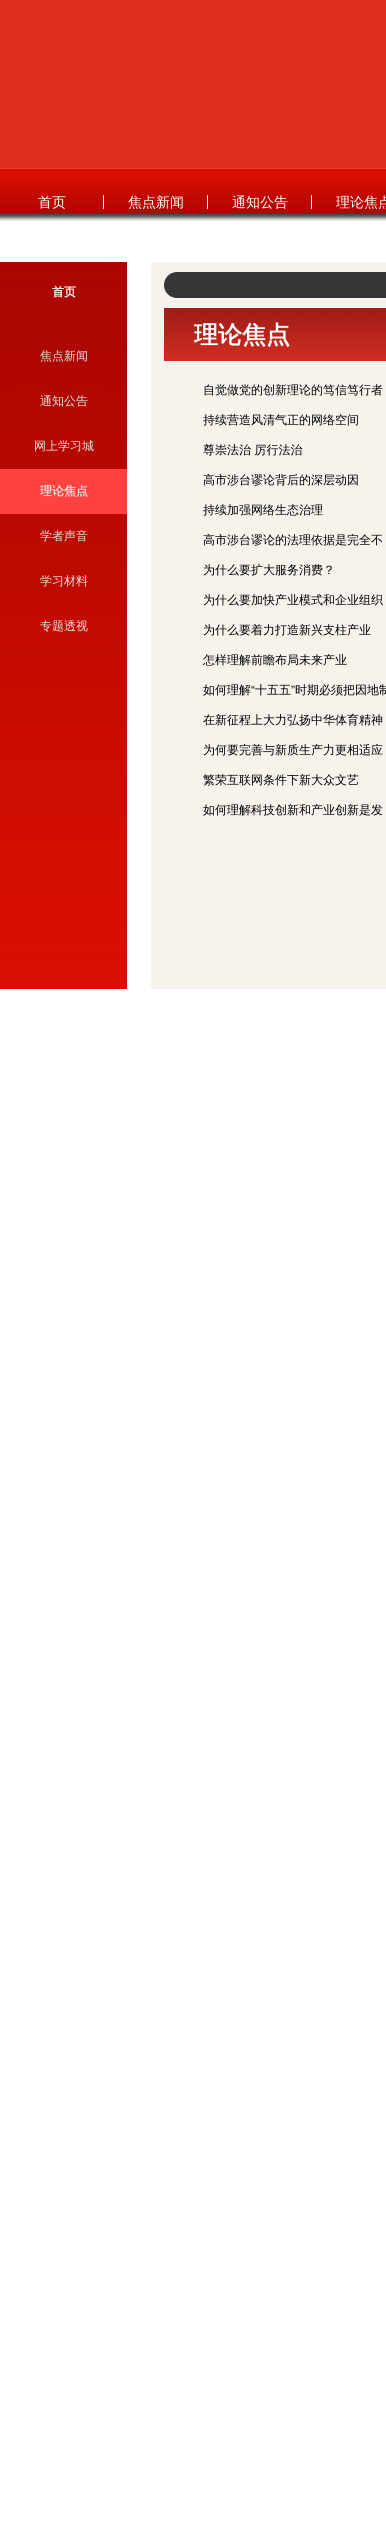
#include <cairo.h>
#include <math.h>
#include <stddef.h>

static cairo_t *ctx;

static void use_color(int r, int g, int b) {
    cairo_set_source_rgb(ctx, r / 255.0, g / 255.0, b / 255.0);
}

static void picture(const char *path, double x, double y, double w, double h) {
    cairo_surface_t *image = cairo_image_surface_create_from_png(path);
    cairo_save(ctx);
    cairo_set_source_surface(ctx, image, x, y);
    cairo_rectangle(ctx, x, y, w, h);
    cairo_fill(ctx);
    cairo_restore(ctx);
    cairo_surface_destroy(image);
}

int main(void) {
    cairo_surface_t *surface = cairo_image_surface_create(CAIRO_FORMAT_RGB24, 386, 2523);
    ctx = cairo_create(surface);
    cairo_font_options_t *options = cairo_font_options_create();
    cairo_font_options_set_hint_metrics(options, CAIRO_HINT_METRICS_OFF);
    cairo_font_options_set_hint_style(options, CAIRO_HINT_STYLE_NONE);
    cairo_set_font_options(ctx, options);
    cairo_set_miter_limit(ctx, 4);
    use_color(255, 255, 255);
    cairo_paint(ctx);
    picture("img1.png", 0, 0, 386, 221);
    use_color(255, 255, 255);
    cairo_rectangle(ctx, 103, 195, 1, 14);
    cairo_fill(ctx);
    cairo_select_font_face(ctx, "WenQuanYi Zen Hei Medium", CAIRO_FONT_SLANT_NORMAL, CAIRO_FONT_WEIGHT_NORMAL);
    cairo_set_font_size(ctx, 14);
    cairo_move_to(ctx, 38, 207);
    cairo_show_text(ctx, "首页");
    cairo_rectangle(ctx, 207, 195, 1, 14);
    cairo_fill(ctx);
    cairo_move_to(ctx, 128, 207);
    cairo_show_text(ctx, "焦点新闻");
    cairo_rectangle(ctx, 311, 195, 1, 14);
    cairo_fill(ctx);
    cairo_move_to(ctx, 232, 207);
    cairo_show_text(ctx, "通知公告");
    cairo_move_to(ctx, 336, 207);
    cairo_show_text(ctx, "理论焦点");
    picture("img2.png", 0, 262, 127, 727);
    cairo_select_font_face(ctx, "WenQuanYi Zen Hei", CAIRO_FONT_SLANT_NORMAL, CAIRO_FONT_WEIGHT_BOLD);
    cairo_set_font_size(ctx, 12);
    cairo_move_to(ctx, 52, 296);
    cairo_show_text(ctx, "首页");
    cairo_select_font_face(ctx, "WenQuanYi Zen Hei Medium", CAIRO_FONT_SLANT_NORMAL, CAIRO_FONT_WEIGHT_NORMAL);
    use_color(230, 225, 225);
    cairo_move_to(ctx, 40, 360);
    cairo_show_text(ctx, "焦点新闻");
    cairo_move_to(ctx, 40, 405);
    cairo_show_text(ctx, "通知公告");
    cairo_move_to(ctx, 34, 450);
    cairo_show_text(ctx, "网上学习城");
    use_color(255, 66, 64);
    cairo_rectangle(ctx, 0, 469, 127, 45);
    cairo_fill(ctx);
    cairo_select_font_face(ctx, "WenQuanYi Zen Hei", CAIRO_FONT_SLANT_NORMAL, CAIRO_FONT_WEIGHT_BOLD);
    use_color(230, 225, 225);
    cairo_move_to(ctx, 40, 495);
    cairo_show_text(ctx, "理论焦点");
    cairo_select_font_face(ctx, "WenQuanYi Zen Hei Medium", CAIRO_FONT_SLANT_NORMAL, CAIRO_FONT_WEIGHT_NORMAL);
    cairo_move_to(ctx, 40, 540);
    cairo_show_text(ctx, "学者声音");
    cairo_move_to(ctx, 40, 585);
    cairo_show_text(ctx, "学习材料");
    cairo_move_to(ctx, 40, 630);
    cairo_show_text(ctx, "专题透视");
    use_color(245, 243, 235);
    cairo_rectangle(ctx, 151, 262, 235, 727);
    cairo_fill(ctx);
    picture("img3.png", 164, 272, 222, 26);
    picture("img4.png", 164, 308, 222, 53);
    cairo_select_font_face(ctx, "WenQuanYi Zen Hei", CAIRO_FONT_SLANT_NORMAL, CAIRO_FONT_WEIGHT_BOLD);
    cairo_set_font_size(ctx, 24);
    use_color(255, 255, 255);
    cairo_move_to(ctx, 194, 343);
    cairo_show_text(ctx, "理论焦点");
    cairo_select_font_face(ctx, "WenQuanYi Zen Hei Medium", CAIRO_FONT_SLANT_NORMAL, CAIRO_FONT_WEIGHT_NORMAL);
    cairo_set_font_size(ctx, 12);
    use_color(0, 0, 0);
    cairo_move_to(ctx, 203, 394);
    cairo_show_text(ctx, "自觉做党的创新理论的笃信笃行者");
    cairo_move_to(ctx, 203, 424);
    cairo_show_text(ctx, "持续营造风清气正的网络空间");
    cairo_move_to(ctx, 203, 454);
    cairo_show_text(ctx, "尊崇法治 厉行法治");
    cairo_move_to(ctx, 203, 484);
    cairo_show_text(ctx, "高市涉台谬论背后的深层动因");
    cairo_move_to(ctx, 203, 514);
    cairo_show_text(ctx, "持续加强网络生态治理");
    cairo_move_to(ctx, 203, 544);
    cairo_show_text(ctx, "高市涉台谬论的法理依据是完全不");
    cairo_move_to(ctx, 203, 574);
    cairo_show_text(ctx, "为什么要扩大服务消费？");
    cairo_move_to(ctx, 203, 604);
    cairo_show_text(ctx, "为什么要加快产业模式和企业组织");
    cairo_move_to(ctx, 203, 634);
    cairo_show_text(ctx, "为什么要着力打造新兴支柱产业");
    cairo_move_to(ctx, 203, 664);
    cairo_show_text(ctx, "怎样理解前瞻布局未来产业");
    cairo_move_to(ctx, 203, 694);
    cairo_show_text(ctx, "如何理解");
    cairo_select_font_face(ctx, "Liberation Sans", CAIRO_FONT_SLANT_NORMAL, CAIRO_FONT_WEIGHT_NORMAL);
    cairo_move_to(ctx, 251, 694);
    cairo_show_text(ctx, "“");
    cairo_select_font_face(ctx, "WenQuanYi Zen Hei Medium", CAIRO_FONT_SLANT_NORMAL, CAIRO_FONT_WEIGHT_NORMAL);
    cairo_move_to(ctx, 255, 694);
    cairo_show_text(ctx, "十五五");
    cairo_select_font_face(ctx, "Liberation Sans", CAIRO_FONT_SLANT_NORMAL, CAIRO_FONT_WEIGHT_NORMAL);
    cairo_move_to(ctx, 291, 694);
    cairo_show_text(ctx, "”");
    cairo_select_font_face(ctx, "WenQuanYi Zen Hei Medium", CAIRO_FONT_SLANT_NORMAL, CAIRO_FONT_WEIGHT_NORMAL);
    cairo_move_to(ctx, 295, 694);
    cairo_show_text(ctx, "时期必须把因地制");
    cairo_move_to(ctx, 203, 724);
    cairo_show_text(ctx, "在新征程上大力弘扬中华体育精神");
    cairo_move_to(ctx, 203, 754);
    cairo_show_text(ctx, "为何要完善与新质生产力更相适应");
    cairo_move_to(ctx, 203, 784);
    cairo_show_text(ctx, "繁荣互联网条件下新大众文艺");
    cairo_move_to(ctx, 203, 814);
    cairo_show_text(ctx, "如何理解科技创新和产业创新是发");
    cairo_surface_write_to_png(surface, "result.png");
    cairo_font_options_destroy(options);
    cairo_destroy(ctx);
    cairo_surface_destroy(surface);
    return 0;
}
